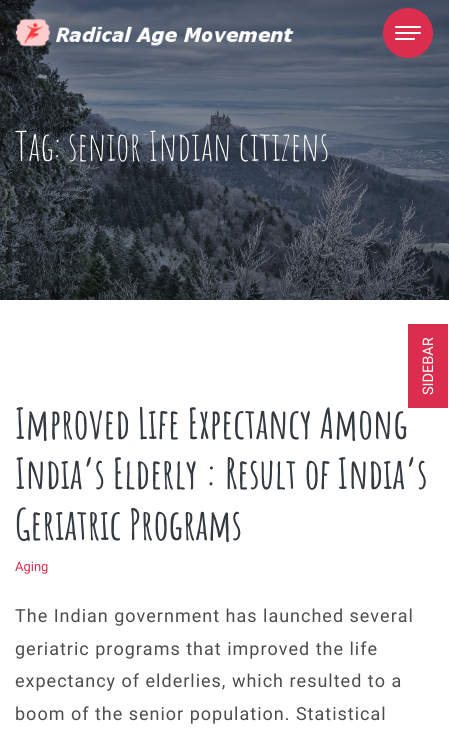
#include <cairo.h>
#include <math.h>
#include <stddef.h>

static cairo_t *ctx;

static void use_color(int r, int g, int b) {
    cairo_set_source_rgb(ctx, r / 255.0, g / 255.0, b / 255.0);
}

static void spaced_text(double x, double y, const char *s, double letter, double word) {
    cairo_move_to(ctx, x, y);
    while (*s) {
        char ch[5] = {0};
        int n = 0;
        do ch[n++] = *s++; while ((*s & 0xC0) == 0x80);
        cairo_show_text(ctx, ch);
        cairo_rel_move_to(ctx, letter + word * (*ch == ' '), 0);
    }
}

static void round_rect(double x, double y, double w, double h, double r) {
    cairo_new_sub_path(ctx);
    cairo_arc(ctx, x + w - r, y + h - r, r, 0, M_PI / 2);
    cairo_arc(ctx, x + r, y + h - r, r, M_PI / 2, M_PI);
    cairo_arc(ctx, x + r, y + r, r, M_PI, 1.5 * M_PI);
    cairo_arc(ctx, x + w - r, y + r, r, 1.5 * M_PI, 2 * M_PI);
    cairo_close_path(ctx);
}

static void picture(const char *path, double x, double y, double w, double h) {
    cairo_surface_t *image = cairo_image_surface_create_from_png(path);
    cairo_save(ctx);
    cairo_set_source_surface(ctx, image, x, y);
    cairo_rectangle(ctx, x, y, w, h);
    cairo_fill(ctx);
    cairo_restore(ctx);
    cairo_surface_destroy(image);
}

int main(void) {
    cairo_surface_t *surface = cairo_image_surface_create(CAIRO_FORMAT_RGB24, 449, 732);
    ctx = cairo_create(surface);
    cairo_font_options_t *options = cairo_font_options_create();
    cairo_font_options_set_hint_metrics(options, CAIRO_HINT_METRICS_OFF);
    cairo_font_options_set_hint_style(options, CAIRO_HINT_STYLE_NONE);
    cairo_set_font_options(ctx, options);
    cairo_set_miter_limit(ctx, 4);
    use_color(255, 255, 255);
    cairo_paint(ctx);
    picture("img2.png", 0, 0, 449, 300);
    picture("img1.png", 16, 18, 278, 29);
    use_color(219, 46, 78);
    cairo_arc(ctx, 408, 33, 25, 0, 2 * M_PI);
    cairo_fill(ctx);
    use_color(255, 255, 255);
    round_rect(395, 26, 26, 2, 1);
    cairo_fill(ctx);
    round_rect(395, 32, 26, 2, 1);
    cairo_fill(ctx);
    round_rect(395, 38, 20, 2, 1);
    cairo_fill(ctx);
    cairo_select_font_face(ctx, "Amatic SC", CAIRO_FONT_SLANT_NORMAL, CAIRO_FONT_WEIGHT_NORMAL);
    cairo_set_font_size(ctx, 40);
    cairo_move_to(ctx, 15, 161);
    cairo_show_text(ctx, "Tag: senior Indian citizens");
    use_color(219, 46, 78);
    cairo_rectangle(ctx, 408, 324, 40, 84);
    cairo_fill(ctx);
    cairo_select_font_face(ctx, "Roboto", CAIRO_FONT_SLANT_NORMAL, CAIRO_FONT_WEIGHT_NORMAL);
    cairo_set_font_size(ctx, 14.5);
    use_color(255, 255, 255);
    cairo_save(ctx);
    cairo_translate(ctx, 433, 395);
    cairo_rotate(ctx, -90 * M_PI / 180);
    cairo_move_to(ctx, 0, 0);
    cairo_show_text(ctx, "SIDEBAR");
    cairo_restore(ctx);
    cairo_select_font_face(ctx, "Amatic SC", CAIRO_FONT_SLANT_NORMAL, CAIRO_FONT_WEIGHT_BOLD);
    cairo_set_font_size(ctx, 42);
    use_color(52, 58, 64);
    cairo_move_to(ctx, 15, 439);
    cairo_show_text(ctx, "Improved Life Expectancy Among");
    cairo_move_to(ctx, 15, 489);
    cairo_show_text(ctx, "India’s Elderly : Result of India’s");
    cairo_move_to(ctx, 15, 540);
    cairo_show_text(ctx, "Geriatric Programs");
    cairo_select_font_face(ctx, "Roboto", CAIRO_FONT_SLANT_NORMAL, CAIRO_FONT_WEIGHT_NORMAL);
    cairo_set_font_size(ctx, 13);
    use_color(219, 46, 78);
    cairo_move_to(ctx, 15, 571);
    cairo_show_text(ctx, "Aging");
    cairo_set_font_size(ctx, 18);
    use_color(77, 77, 77);
    spaced_text(15, 622, "The Indian government has launched several", 1, 0);
    spaced_text(15, 655, "geriatric programs that improved the life", 1, 0);
    spaced_text(15, 687, "expectancy of elderlies, which resulted to a", 1, 0);
    spaced_text(15, 720, "boom of the senior population. Statistical", 1, 0);
    cairo_surface_write_to_png(surface, "result.png");
    cairo_font_options_destroy(options);
    cairo_destroy(ctx);
    cairo_surface_destroy(surface);
    return 0;
}
